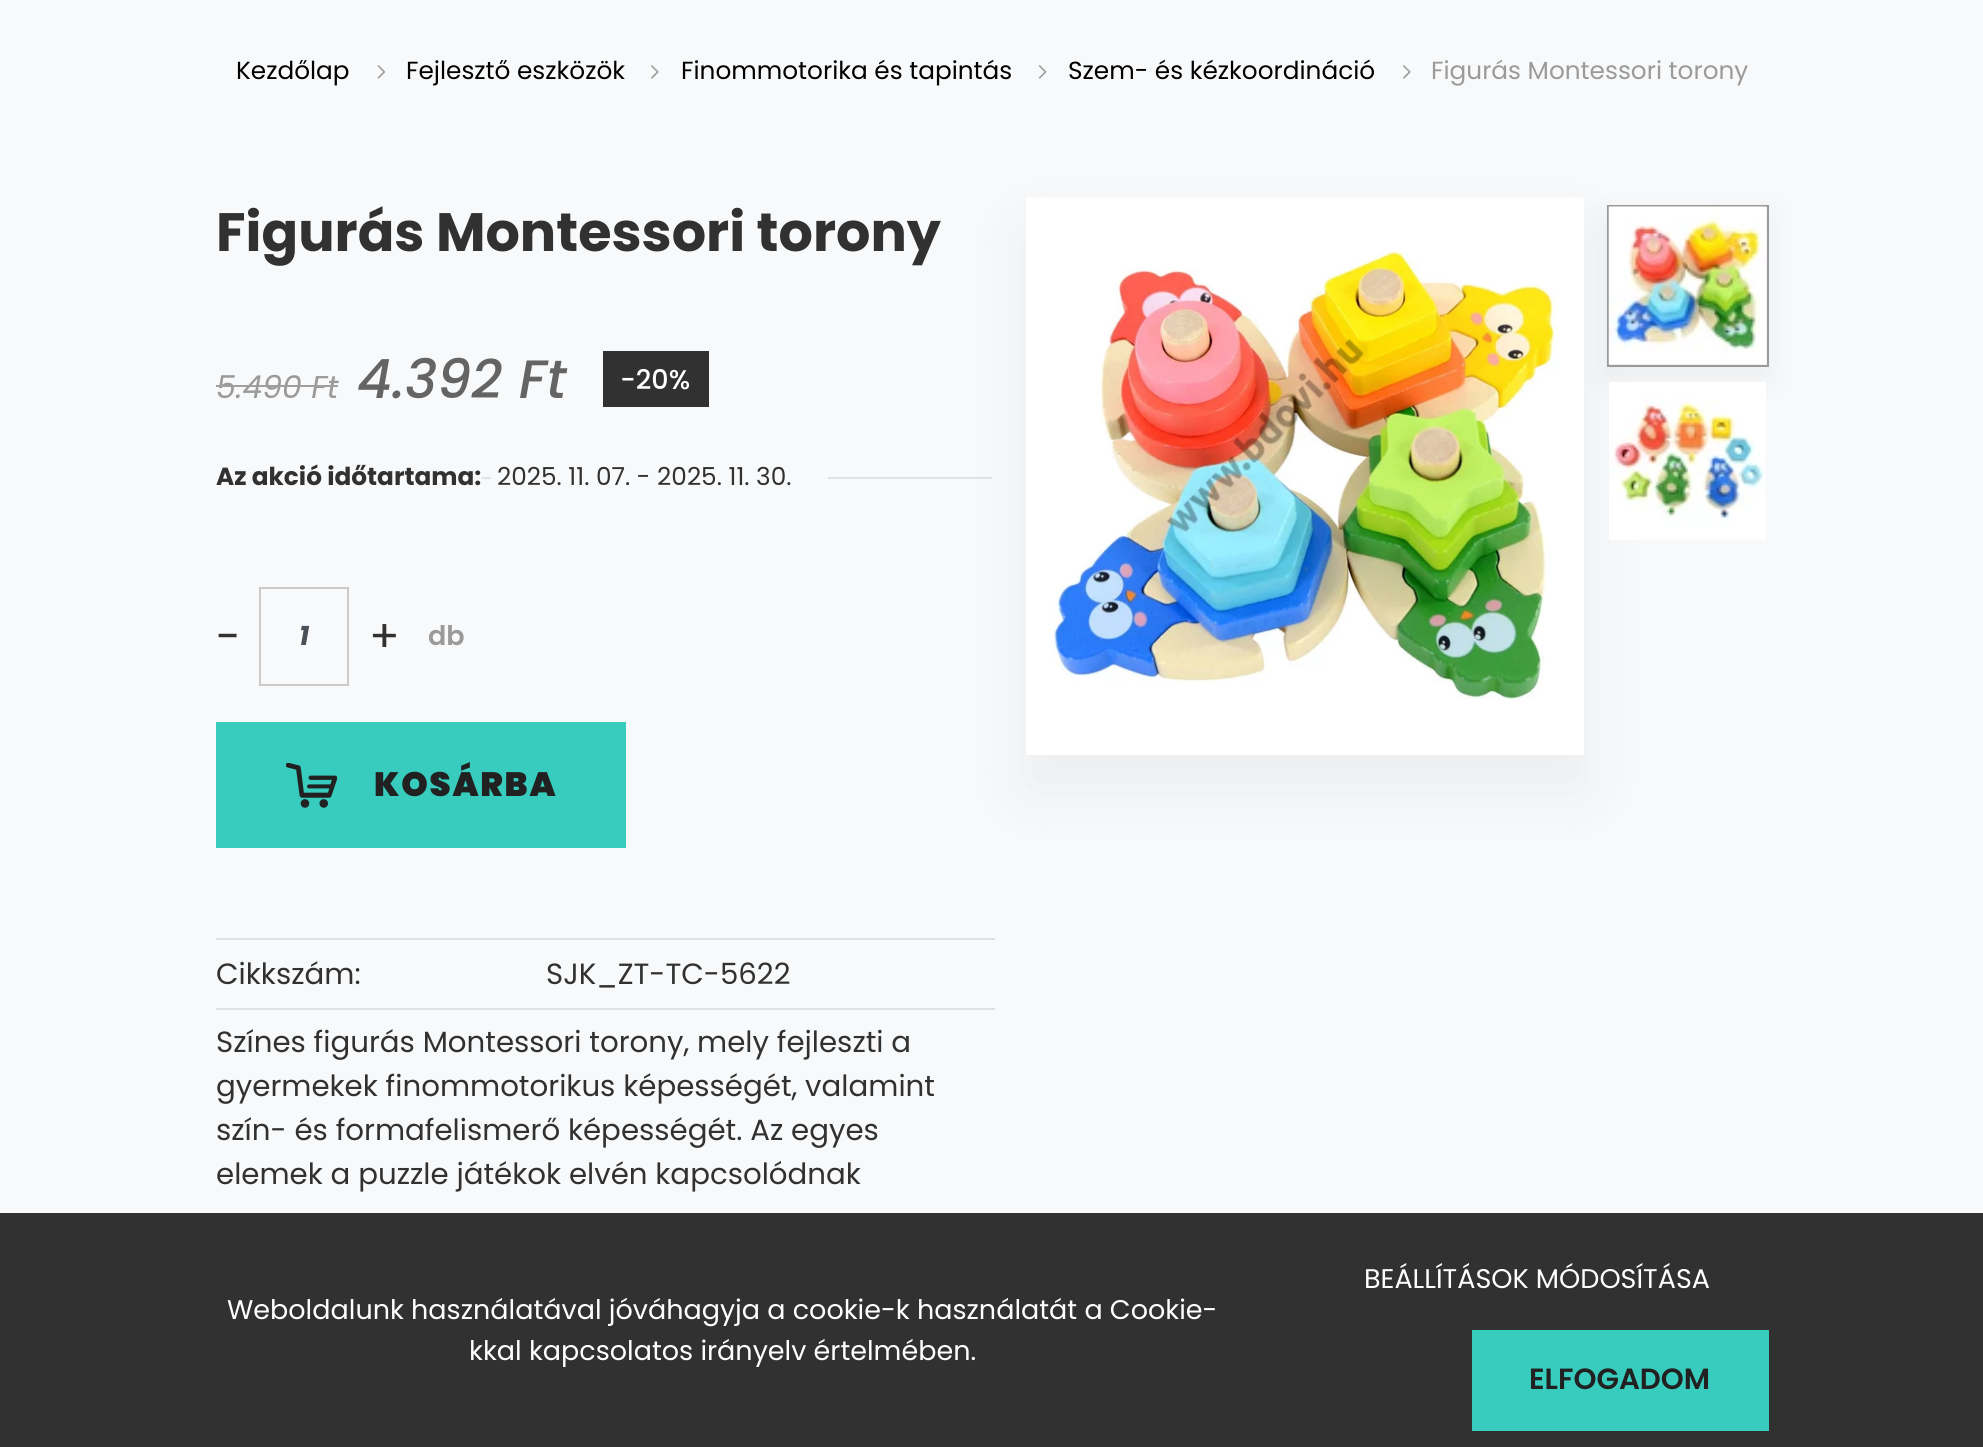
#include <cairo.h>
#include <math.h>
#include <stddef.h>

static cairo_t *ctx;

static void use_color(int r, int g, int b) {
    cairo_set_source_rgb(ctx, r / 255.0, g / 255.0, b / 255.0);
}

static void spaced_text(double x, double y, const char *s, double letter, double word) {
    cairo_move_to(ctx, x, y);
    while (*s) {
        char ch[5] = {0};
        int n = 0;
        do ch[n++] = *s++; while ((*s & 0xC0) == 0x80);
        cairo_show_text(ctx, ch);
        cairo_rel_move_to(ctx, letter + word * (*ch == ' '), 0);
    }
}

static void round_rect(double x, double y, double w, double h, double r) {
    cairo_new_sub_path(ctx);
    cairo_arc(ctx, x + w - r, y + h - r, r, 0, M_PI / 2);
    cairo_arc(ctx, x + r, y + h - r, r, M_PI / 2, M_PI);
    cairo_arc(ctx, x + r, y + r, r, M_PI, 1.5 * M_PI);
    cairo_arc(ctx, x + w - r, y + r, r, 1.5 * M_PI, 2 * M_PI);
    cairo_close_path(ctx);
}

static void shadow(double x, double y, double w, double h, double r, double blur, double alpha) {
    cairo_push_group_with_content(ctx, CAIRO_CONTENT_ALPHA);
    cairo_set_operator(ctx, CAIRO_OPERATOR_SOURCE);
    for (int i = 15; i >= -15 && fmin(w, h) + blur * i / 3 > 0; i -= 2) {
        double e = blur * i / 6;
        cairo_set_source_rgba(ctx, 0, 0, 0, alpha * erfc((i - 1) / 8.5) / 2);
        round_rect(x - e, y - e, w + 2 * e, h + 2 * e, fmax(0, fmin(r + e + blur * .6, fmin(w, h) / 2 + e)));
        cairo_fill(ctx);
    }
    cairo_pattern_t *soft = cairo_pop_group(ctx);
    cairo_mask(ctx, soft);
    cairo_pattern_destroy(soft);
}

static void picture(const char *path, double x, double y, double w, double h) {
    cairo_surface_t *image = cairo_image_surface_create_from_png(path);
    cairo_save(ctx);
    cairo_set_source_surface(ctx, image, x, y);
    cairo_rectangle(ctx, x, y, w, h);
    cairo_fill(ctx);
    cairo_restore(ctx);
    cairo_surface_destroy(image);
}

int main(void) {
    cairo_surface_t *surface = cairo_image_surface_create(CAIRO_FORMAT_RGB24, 1983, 1447);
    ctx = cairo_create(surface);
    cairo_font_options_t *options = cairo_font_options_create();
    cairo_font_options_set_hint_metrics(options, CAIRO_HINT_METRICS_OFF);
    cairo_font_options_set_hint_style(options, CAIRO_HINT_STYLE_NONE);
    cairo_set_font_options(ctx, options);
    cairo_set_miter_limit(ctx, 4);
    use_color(248, 249, 250);
    cairo_paint(ctx);
    cairo_select_font_face(ctx, "Poppins", CAIRO_FONT_SLANT_NORMAL, CAIRO_FONT_WEIGHT_NORMAL);
    cairo_set_font_size(ctx, 24.75);
    use_color(0, 0, 0);
    cairo_move_to(ctx, 236, 79);
    cairo_show_text(ctx, "Kezdőlap");
    picture("img1.png", 377, 65, 8, 14);
    cairo_move_to(ctx, 406, 79);
    cairo_show_text(ctx, "Fejlesztő eszközök");
    picture("img2.png", 651, 65, 8, 14);
    cairo_move_to(ctx, 681, 79);
    cairo_show_text(ctx, "Finommotorika és tapintás");
    picture("img3.png", 1038, 65, 9, 14);
    cairo_move_to(ctx, 1068, 79);
    cairo_show_text(ctx, "Szem- és kézkoordináció");
    picture("img4.png", 1403, 65, 8, 14);
    use_color(154, 154, 154);
    cairo_move_to(ctx, 1431, 79);
    cairo_show_text(ctx, "Figurás Montessori torony");
    cairo_select_font_face(ctx, "Poppins", CAIRO_FONT_SLANT_NORMAL, CAIRO_FONT_WEIGHT_BOLD);
    cairo_set_font_size(ctx, 54);
    use_color(49, 49, 49);
    cairo_move_to(ctx, 216, 251);
    cairo_show_text(ctx, "Figurás Montessori torony");
    cairo_select_font_face(ctx, "Poppins", CAIRO_FONT_SLANT_ITALIC, CAIRO_FONT_WEIGHT_NORMAL);
    cairo_set_font_size(ctx, 31.5);
    use_color(154, 154, 154);
    cairo_move_to(ctx, 216, 398);
    cairo_show_text(ctx, "5.490 Ft");
    use_color(159, 159, 159);
    cairo_rectangle(ctx, 216, 385, 122, 2);
    cairo_fill(ctx);
    cairo_select_font_face(ctx, "Poppins Medium", CAIRO_FONT_SLANT_ITALIC, CAIRO_FONT_WEIGHT_NORMAL);
    cairo_set_font_size(ctx, 54);
    use_color(100, 100, 100);
    cairo_move_to(ctx, 357, 398);
    cairo_show_text(ctx, "4.392 Ft");
    use_color(49, 49, 49);
    cairo_rectangle(ctx, 603, 351, 106, 56);
    cairo_fill(ctx);
    cairo_select_font_face(ctx, "Poppins Medium", CAIRO_FONT_SLANT_NORMAL, CAIRO_FONT_WEIGHT_NORMAL);
    cairo_set_font_size(ctx, 27);
    use_color(255, 255, 255);
    cairo_move_to(ctx, 620, 389);
    cairo_show_text(ctx, "-20%");
    cairo_select_font_face(ctx, "Poppins", CAIRO_FONT_SLANT_NORMAL, CAIRO_FONT_WEIGHT_BOLD);
    cairo_set_font_size(ctx, 24.75);
    use_color(49, 49, 49);
    cairo_move_to(ctx, 216, 485);
    cairo_show_text(ctx, "Az akció időtartama:");
    use_color(222, 226, 230);
    cairo_rectangle(ctx, 482, 477, 510, 2);
    cairo_fill(ctx);
    use_color(248, 249, 250);
    cairo_rectangle(ctx, 491, 477, 337, 2);
    cairo_fill(ctx);
    cairo_select_font_face(ctx, "Poppins", CAIRO_FONT_SLANT_NORMAL, CAIRO_FONT_WEIGHT_NORMAL);
    use_color(49, 49, 49);
    cairo_move_to(ctx, 497, 485);
    cairo_show_text(ctx, "2025. 11. 07. - 2025. 11. 30.");
    cairo_set_font_size(ctx, 45);
    cairo_move_to(ctx, 216, 652);
    cairo_show_text(ctx, "-");
    cairo_rectangle(ctx, 260, 588, 88, 97);
    use_color(202, 202, 202);
    cairo_stroke(ctx);
    cairo_select_font_face(ctx, "Poppins", CAIRO_FONT_SLANT_ITALIC, CAIRO_FONT_WEIGHT_BOLD);
    cairo_set_font_size(ctx, 27);
    use_color(73, 80, 87);
    cairo_move_to(ctx, 299, 645);
    cairo_show_text(ctx, "1");
    cairo_select_font_face(ctx, "Poppins", CAIRO_FONT_SLANT_NORMAL, CAIRO_FONT_WEIGHT_NORMAL);
    cairo_set_font_size(ctx, 45);
    use_color(49, 49, 49);
    cairo_move_to(ctx, 369, 652);
    cairo_show_text(ctx, "+");
    cairo_select_font_face(ctx, "Poppins SemiBold", CAIRO_FONT_SLANT_NORMAL, CAIRO_FONT_WEIGHT_NORMAL);
    cairo_set_font_size(ctx, 27);
    use_color(154, 154, 154);
    cairo_move_to(ctx, 428, 645);
    cairo_show_text(ctx, "db");
    use_color(55, 204, 189);
    cairo_rectangle(ctx, 216, 722, 410, 126);
    cairo_fill(ctx);
    picture("img5.png", 286, 763, 52, 45);
    cairo_select_font_face(ctx, "Poppins Black", CAIRO_FONT_SLANT_NORMAL, CAIRO_FONT_WEIGHT_NORMAL);
    cairo_set_font_size(ctx, 33.75);
    use_color(33, 33, 33);
    spaced_text(374, 796, "KOSÁRBA", 1.75, 0);
    cairo_select_font_face(ctx, "Poppins", CAIRO_FONT_SLANT_NORMAL, CAIRO_FONT_WEIGHT_NORMAL);
    cairo_set_font_size(ctx, 29.25);
    use_color(49, 49, 49);
    cairo_move_to(ctx, 216, 984);
    cairo_show_text(ctx, "Cikkszám:");
    use_color(222, 226, 230);
    cairo_rectangle(ctx, 216, 938, 779, 2);
    cairo_fill(ctx);
    use_color(49, 49, 49);
    cairo_move_to(ctx, 546, 984);
    cairo_show_text(ctx, "SJK_ZT-TC-5622");
    use_color(222, 226, 230);
    cairo_rectangle(ctx, 216, 1008, 779, 2);
    cairo_fill(ctx);
    use_color(49, 49, 49);
    cairo_move_to(ctx, 216, 1052);
    cairo_show_text(ctx, "Színes figurás Montessori torony, mely fejleszti a");
    cairo_move_to(ctx, 216, 1096);
    cairo_show_text(ctx, "gyermekek finommotorikus képességét, valamint");
    cairo_move_to(ctx, 216, 1140);
    cairo_show_text(ctx, "szín- és formafelismerő képességét. Az egyes");
    cairo_move_to(ctx, 216, 1184);
    cairo_show_text(ctx, "elemek a puzzle játékok elvén kapcsolódnak");
    use_color(0, 0, 0);
    shadow(1026, 232, 558, 558, 0, 34, 0.05);
    picture("img6.png", 1026, 197, 558, 558);
    shadow(1607, 216, 162, 162, 0, 16, 0.05);
    cairo_rectangle(ctx, 1608, 206, 160, 160);
    use_color(154, 154, 154);
    cairo_stroke(ctx);
    picture("img7.png", 1608, 206, 159, 158);
    picture("img8.png", 1609, 382, 157, 158);
    use_color(49, 49, 49);
    cairo_rectangle(ctx, 0, 1213, 1983, 234);
    cairo_fill(ctx);
    cairo_set_font_size(ctx, 27);
    use_color(255, 255, 255);
    cairo_move_to(ctx, 227, 1319);
    cairo_show_text(ctx, "Weboldalunk használatával jóváhagyja a cookie-k használatát a Cookie-");
    cairo_move_to(ctx, 469, 1360);
    cairo_show_text(ctx, "kkal kapcsolatos irányelv értelmében.");
    cairo_move_to(ctx, 1364, 1288);
    cairo_show_text(ctx, "BEÁLLÍTÁSOK MÓDOSÍTÁSA");
    use_color(55, 204, 189);
    cairo_rectangle(ctx, 1472, 1330, 297, 101);
    cairo_fill(ctx);
    cairo_select_font_face(ctx, "Poppins SemiBold", CAIRO_FONT_SLANT_NORMAL, CAIRO_FONT_WEIGHT_NORMAL);
    cairo_set_font_size(ctx, 29.25);
    use_color(33, 33, 33);
    cairo_move_to(ctx, 1529, 1389);
    cairo_show_text(ctx, "ELFOGADOM");
    cairo_surface_write_to_png(surface, "result.png");
    cairo_font_options_destroy(options);
    cairo_destroy(ctx);
    cairo_surface_destroy(surface);
    return 0;
}
